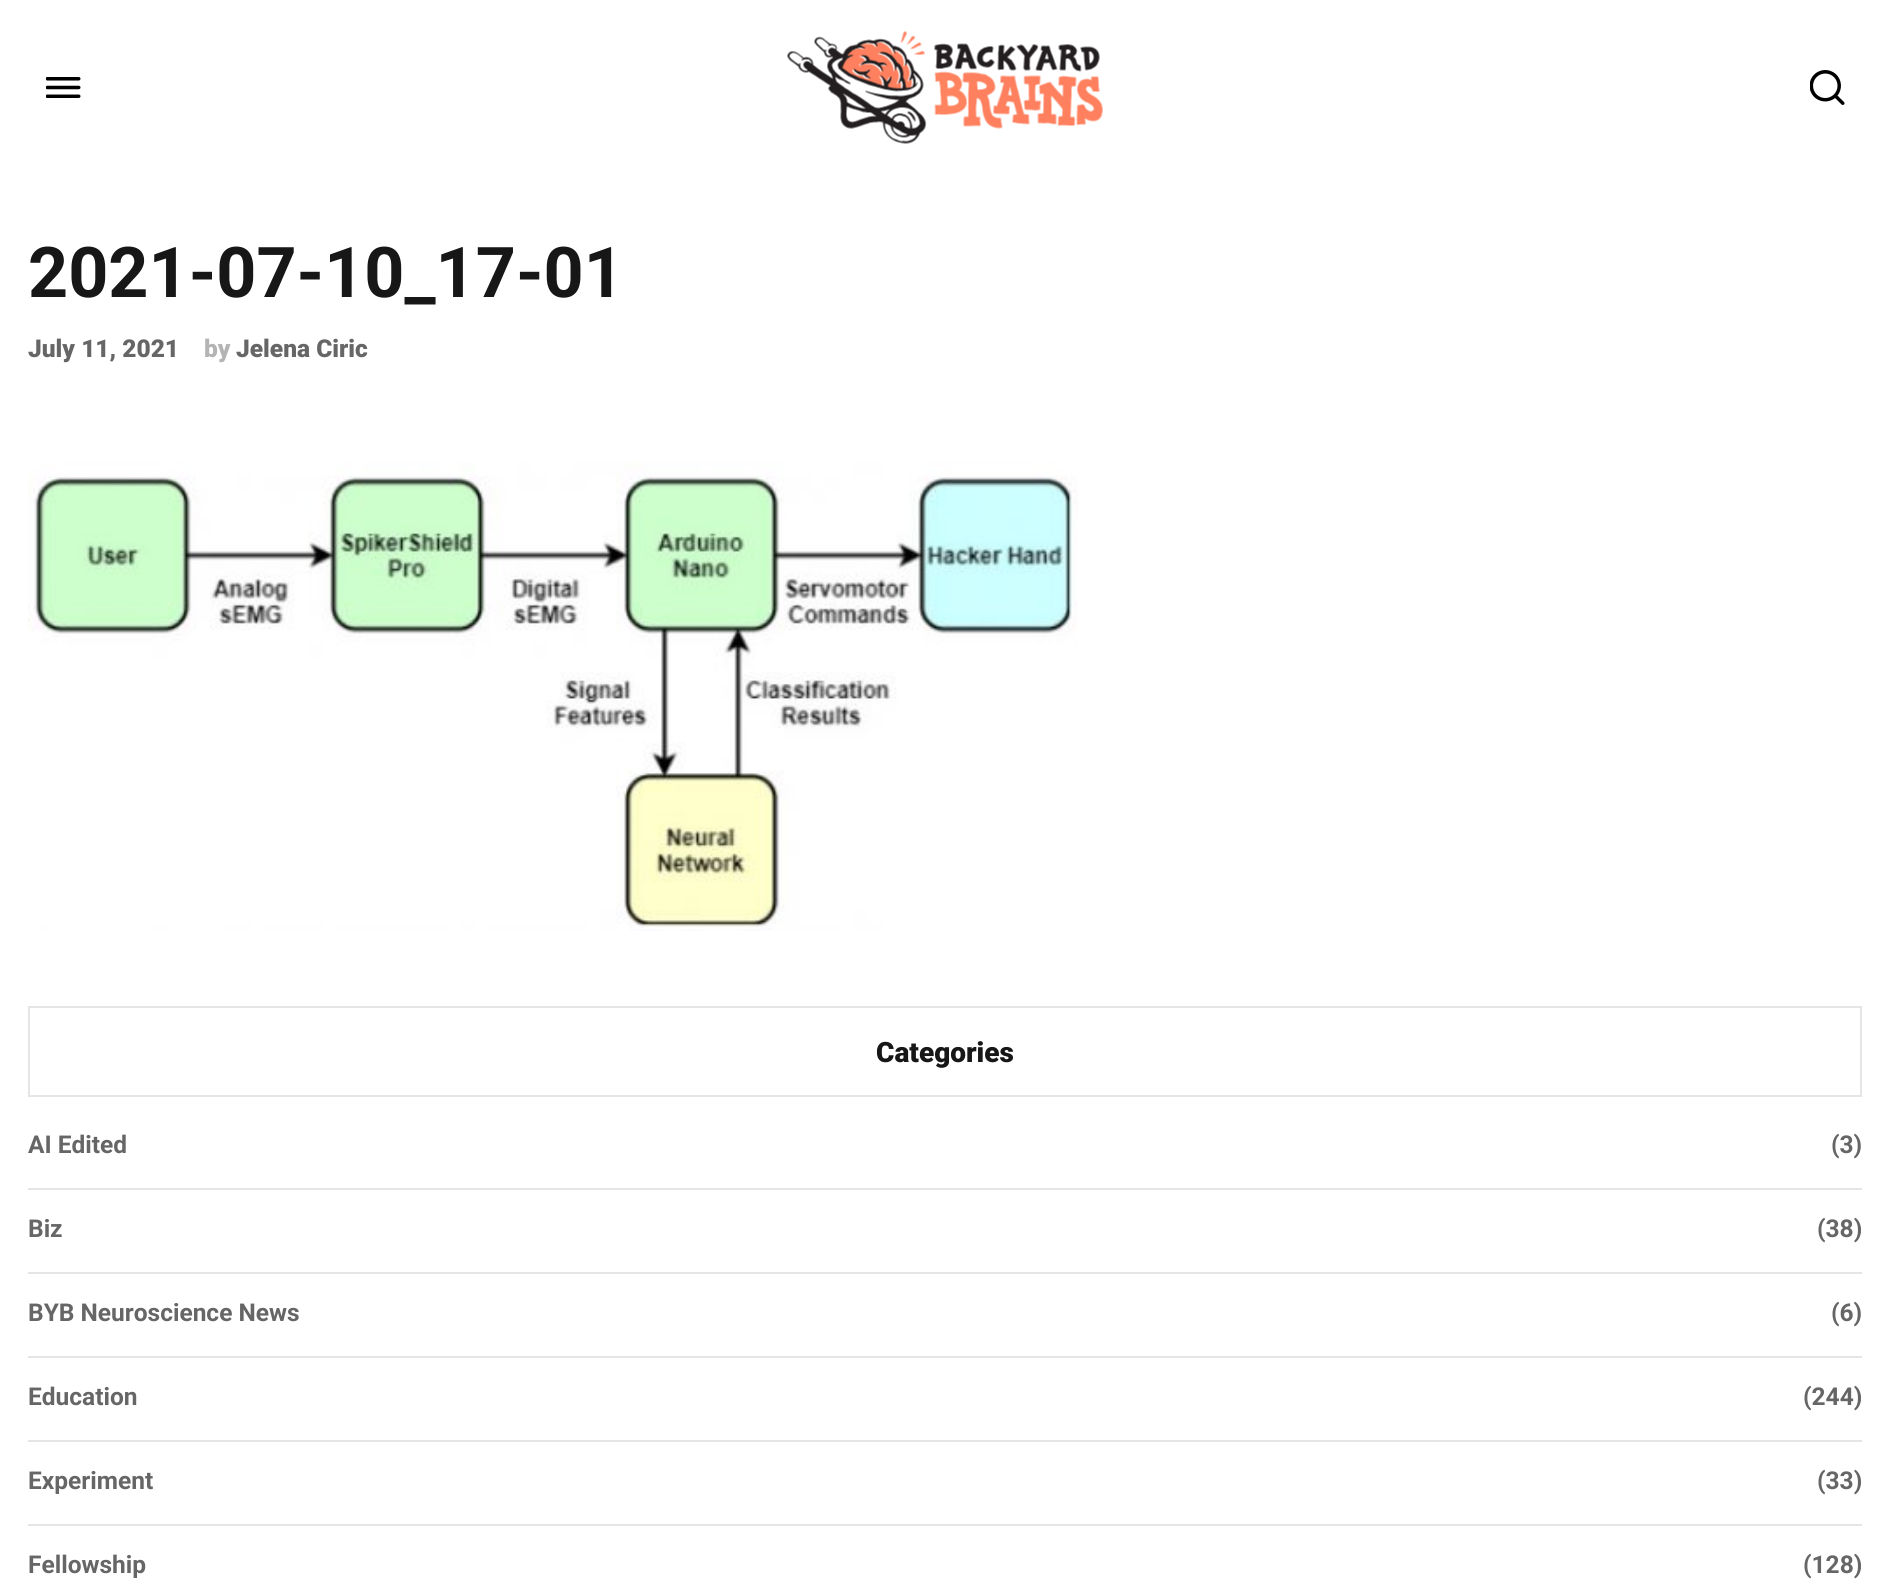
#include <cairo.h>
#include <math.h>
#include <stddef.h>

static cairo_t *ctx;

static void use_color(int r, int g, int b) {
    cairo_set_source_rgb(ctx, r / 255.0, g / 255.0, b / 255.0);
}

static void picture(const char *path, double x, double y, double w, double h) {
    cairo_surface_t *image = cairo_image_surface_create_from_png(path);
    cairo_save(ctx);
    cairo_set_source_surface(ctx, image, x, y);
    cairo_rectangle(ctx, x, y, w, h);
    cairo_fill(ctx);
    cairo_restore(ctx);
    cairo_surface_destroy(image);
}

int main(void) {
    cairo_surface_t *surface = cairo_image_surface_create(CAIRO_FORMAT_RGB24, 1890, 1589);
    ctx = cairo_create(surface);
    cairo_font_options_t *options = cairo_font_options_create();
    cairo_font_options_set_hint_metrics(options, CAIRO_HINT_METRICS_OFF);
    cairo_font_options_set_hint_style(options, CAIRO_HINT_STYLE_NONE);
    cairo_set_font_options(ctx, options);
    cairo_set_miter_limit(ctx, 4);
    use_color(255, 255, 255);
    cairo_paint(ctx);
    picture("img1.png", 46, 77, 35, 21);
    picture("img2.png", 787, 31, 316, 113);
    picture("img3.png", 1810, 70, 35, 35);
    cairo_select_font_face(ctx, "Roboto", CAIRO_FONT_SLANT_NORMAL, CAIRO_FONT_WEIGHT_BOLD);
    cairo_set_font_size(ctx, 70);
    use_color(23, 23, 23);
    cairo_move_to(ctx, 28, 297);
    cairo_show_text(ctx, "2021-07-10_17-01");
    cairo_select_font_face(ctx, "Roboto Black", CAIRO_FONT_SLANT_NORMAL, CAIRO_FONT_WEIGHT_NORMAL);
    cairo_set_font_size(ctx, 24.5);
    use_color(102, 102, 102);
    cairo_move_to(ctx, 28, 357);
    cairo_show_text(ctx, "July 11, 2021");
    use_color(180, 180, 180);
    cairo_move_to(ctx, 204, 357);
    cairo_show_text(ctx, "by");
    use_color(102, 102, 102);
    cairo_move_to(ctx, 236, 357);
    cairo_show_text(ctx, "Jelena Ciric");
    picture("img4.png", 28, 462, 1050, 469);
    cairo_rectangle(ctx, 29, 1007, 1832, 89);
    use_color(229, 229, 229);
    cairo_stroke(ctx);
    cairo_set_font_size(ctx, 28);
    use_color(23, 23, 23);
    cairo_move_to(ctx, 876, 1062);
    cairo_show_text(ctx, "Categories");
    cairo_select_font_face(ctx, "Roboto", CAIRO_FONT_SLANT_NORMAL, CAIRO_FONT_WEIGHT_BOLD);
    cairo_set_font_size(ctx, 24.5);
    use_color(102, 102, 102);
    cairo_move_to(ctx, 28, 1153);
    cairo_show_text(ctx, "AI Edited");
    cairo_move_to(ctx, 1831, 1153);
    cairo_show_text(ctx, "(3)");
    use_color(229, 229, 229);
    cairo_rectangle(ctx, 28, 1188, 1834, 2);
    cairo_fill(ctx);
    use_color(102, 102, 102);
    cairo_move_to(ctx, 28, 1237);
    cairo_show_text(ctx, "Biz");
    cairo_move_to(ctx, 1817, 1237);
    cairo_show_text(ctx, "(38)");
    use_color(229, 229, 229);
    cairo_rectangle(ctx, 28, 1272, 1834, 2);
    cairo_fill(ctx);
    use_color(102, 102, 102);
    cairo_move_to(ctx, 28, 1321);
    cairo_show_text(ctx, "BYB Neuroscience News");
    cairo_move_to(ctx, 1831, 1321);
    cairo_show_text(ctx, "(6)");
    use_color(229, 229, 229);
    cairo_rectangle(ctx, 28, 1356, 1834, 2);
    cairo_fill(ctx);
    use_color(102, 102, 102);
    cairo_move_to(ctx, 28, 1405);
    cairo_show_text(ctx, "Education");
    cairo_move_to(ctx, 1803, 1405);
    cairo_show_text(ctx, "(244)");
    use_color(229, 229, 229);
    cairo_rectangle(ctx, 28, 1440, 1834, 2);
    cairo_fill(ctx);
    use_color(102, 102, 102);
    cairo_move_to(ctx, 28, 1489);
    cairo_show_text(ctx, "Experiment");
    cairo_move_to(ctx, 1817, 1489);
    cairo_show_text(ctx, "(33)");
    use_color(229, 229, 229);
    cairo_rectangle(ctx, 28, 1524, 1834, 2);
    cairo_fill(ctx);
    use_color(102, 102, 102);
    cairo_move_to(ctx, 28, 1573);
    cairo_show_text(ctx, "Fellowship");
    cairo_move_to(ctx, 1803, 1573);
    cairo_show_text(ctx, "(128)");
    cairo_surface_write_to_png(surface, "result.png");
    cairo_font_options_destroy(options);
    cairo_destroy(ctx);
    cairo_surface_destroy(surface);
    return 0;
}
